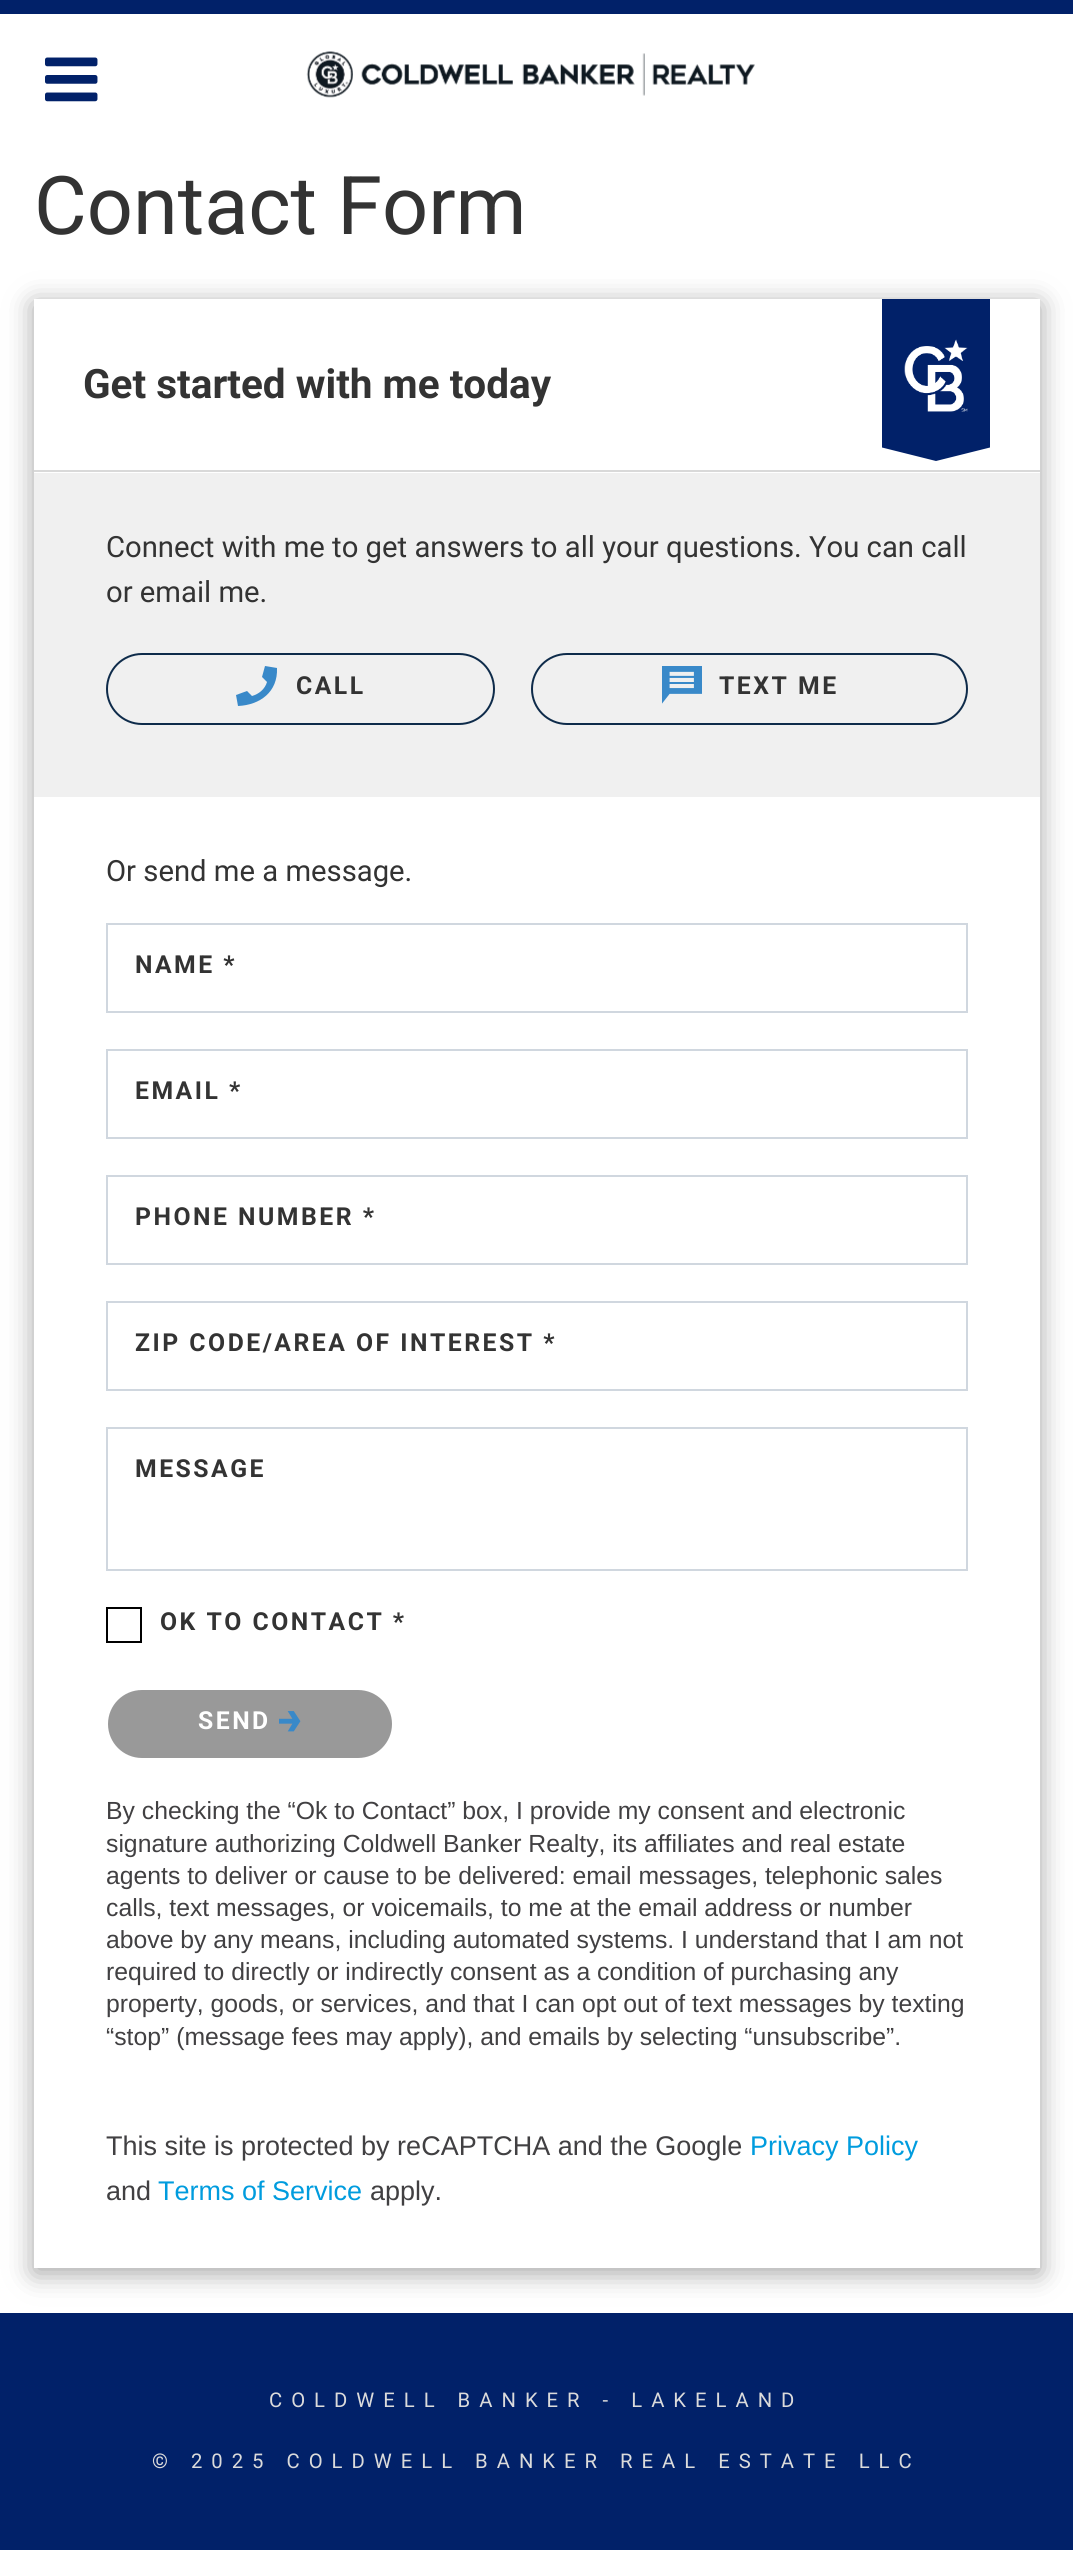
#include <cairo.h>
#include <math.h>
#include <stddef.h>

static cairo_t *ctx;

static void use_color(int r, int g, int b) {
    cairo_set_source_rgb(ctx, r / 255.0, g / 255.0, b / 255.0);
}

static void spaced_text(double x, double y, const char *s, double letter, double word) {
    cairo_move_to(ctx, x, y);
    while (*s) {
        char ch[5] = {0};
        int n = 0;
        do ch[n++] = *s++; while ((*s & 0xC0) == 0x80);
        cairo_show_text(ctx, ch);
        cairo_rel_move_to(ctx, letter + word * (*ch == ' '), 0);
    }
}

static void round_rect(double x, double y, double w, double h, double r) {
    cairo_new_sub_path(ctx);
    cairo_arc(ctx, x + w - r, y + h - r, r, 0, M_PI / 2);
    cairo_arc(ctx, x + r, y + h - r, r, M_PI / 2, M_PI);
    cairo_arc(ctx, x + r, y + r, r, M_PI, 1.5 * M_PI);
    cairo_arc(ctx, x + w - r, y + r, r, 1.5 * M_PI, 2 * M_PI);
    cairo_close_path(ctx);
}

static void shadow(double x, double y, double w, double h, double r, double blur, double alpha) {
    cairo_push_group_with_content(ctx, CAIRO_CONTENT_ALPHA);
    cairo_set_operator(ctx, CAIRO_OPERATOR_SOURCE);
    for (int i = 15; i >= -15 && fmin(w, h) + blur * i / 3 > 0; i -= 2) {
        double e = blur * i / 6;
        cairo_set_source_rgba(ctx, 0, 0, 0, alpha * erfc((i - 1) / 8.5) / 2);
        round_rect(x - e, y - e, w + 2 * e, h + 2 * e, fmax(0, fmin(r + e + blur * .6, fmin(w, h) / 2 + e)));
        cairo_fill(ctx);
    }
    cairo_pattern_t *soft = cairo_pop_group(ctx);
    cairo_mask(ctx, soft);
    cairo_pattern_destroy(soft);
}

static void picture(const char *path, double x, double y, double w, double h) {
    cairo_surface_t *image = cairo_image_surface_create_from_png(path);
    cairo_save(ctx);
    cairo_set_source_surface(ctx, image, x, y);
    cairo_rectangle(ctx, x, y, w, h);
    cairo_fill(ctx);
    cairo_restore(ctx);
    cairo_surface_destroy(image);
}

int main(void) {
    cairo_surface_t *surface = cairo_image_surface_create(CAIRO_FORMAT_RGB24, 1073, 2550);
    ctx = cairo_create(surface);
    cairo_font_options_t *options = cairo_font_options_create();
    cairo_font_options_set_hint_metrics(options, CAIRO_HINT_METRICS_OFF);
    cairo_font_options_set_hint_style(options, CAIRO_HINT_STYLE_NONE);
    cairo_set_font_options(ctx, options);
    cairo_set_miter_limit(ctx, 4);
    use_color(255, 255, 255);
    cairo_paint(ctx);
    use_color(1, 33, 105);
    cairo_rectangle(ctx, 0, 0, 1073, 14);
    cairo_fill(ctx);
    picture("img1.png", 45, 57, 53, 45);
    picture("img2.png", 306, 51, 449, 47);
    cairo_select_font_face(ctx, "Roboto", CAIRO_FONT_SLANT_NORMAL, CAIRO_FONT_WEIGHT_NORMAL);
    cairo_set_font_size(ctx, 81);
    use_color(51, 51, 51);
    cairo_move_to(ctx, 34, 234);
    cairo_show_text(ctx, "Contact Form");
    cairo_save(ctx);
    cairo_set_fill_rule(ctx, CAIRO_FILL_RULE_EVEN_ODD);
    cairo_new_path(ctx);
    cairo_move_to(ctx, 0, 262);
    cairo_line_to(ctx, 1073, 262);
    cairo_line_to(ctx, 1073, 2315);
    cairo_line_to(ctx, 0, 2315);
    cairo_close_path(ctx);
    cairo_move_to(ctx, 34, 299);
    cairo_line_to(ctx, 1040, 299);
    cairo_line_to(ctx, 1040, 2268);
    cairo_line_to(ctx, 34, 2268);
    cairo_close_path(ctx);
    cairo_clip(ctx);
    use_color(71, 71, 71);
    shadow(34, 304, 1006, 1969, 0, 13.5, 0.5);
    cairo_restore(ctx);
    use_color(255, 255, 255);
    cairo_rectangle(ctx, 34, 299, 1006, 174);
    cairo_fill(ctx);
    use_color(217, 217, 217);
    cairo_rectangle(ctx, 34, 470, 1006, 2);
    cairo_fill(ctx);
    cairo_select_font_face(ctx, "Roboto", CAIRO_FONT_SLANT_NORMAL, CAIRO_FONT_WEIGHT_BOLD);
    cairo_set_font_size(ctx, 40.5);
    use_color(51, 51, 51);
    cairo_move_to(ctx, 83, 398);
    cairo_show_text(ctx, "Get started with me today");
    picture("img3.png", 882, 299, 108, 162);
    use_color(240, 240, 240);
    cairo_rectangle(ctx, 34, 473, 1006, 324);
    cairo_fill(ctx);
    cairo_select_font_face(ctx, "Roboto", CAIRO_FONT_SLANT_NORMAL, CAIRO_FONT_WEIGHT_NORMAL);
    cairo_set_font_size(ctx, 29.25);
    use_color(51, 51, 51);
    cairo_move_to(ctx, 106, 557);
    cairo_show_text(ctx, "Connect with me to get answers to all your questions. You can call");
    cairo_move_to(ctx, 106, 602);
    cairo_show_text(ctx, "or email me.");
    round_rect(107, 654, 387, 70, 35);
    use_color(14, 43, 74);
    cairo_stroke(ctx);
    use_color(57, 137, 201);
    cairo_new_path(ctx);
    cairo_move_to(ctx, 265, 666);
    cairo_line_to(ctx, 262, 677);
    cairo_line_to(ctx, 267, 682);
    cairo_curve_to(ctx, 265, 689, 259, 694, 252, 696);
    cairo_line_to(ctx, 247, 691);
    cairo_line_to(ctx, 236, 695);
    cairo_line_to(ctx, 238, 706);
    cairo_curve_to(ctx, 260, 705, 278, 692, 277, 668);
    cairo_close_path(ctx);
    cairo_fill(ctx);
    cairo_select_font_face(ctx, "Roboto", CAIRO_FONT_SLANT_NORMAL, CAIRO_FONT_WEIGHT_BOLD);
    cairo_set_font_size(ctx, 24.75);
    use_color(51, 51, 51);
    spaced_text(296, 694, "CALL", 2.5, 0);
    round_rect(532, 654, 435, 70, 35);
    use_color(14, 43, 74);
    cairo_stroke(ctx);
    picture("img4.png", 662, 666, 40, 38);
    use_color(51, 51, 51);
    spaced_text(719, 694, "TEXT ME", 2.5, 0);
    cairo_select_font_face(ctx, "Roboto", CAIRO_FONT_SLANT_NORMAL, CAIRO_FONT_WEIGHT_NORMAL);
    cairo_set_font_size(ctx, 29.25);
    cairo_move_to(ctx, 106, 881);
    cairo_show_text(ctx, "Or send me a message.");
    cairo_rectangle(ctx, 107, 924, 860, 88);
    use_color(208, 215, 223);
    cairo_stroke(ctx);
    cairo_select_font_face(ctx, "Roboto", CAIRO_FONT_SLANT_NORMAL, CAIRO_FONT_WEIGHT_BOLD);
    cairo_set_font_size(ctx, 24.75);
    use_color(51, 51, 51);
    spaced_text(135, 973, "NAME *", 2.5, 0);
    cairo_rectangle(ctx, 107, 1050, 860, 88);
    use_color(208, 215, 223);
    cairo_stroke(ctx);
    use_color(51, 51, 51);
    spaced_text(135, 1099, "EMAIL *", 2.5, 0);
    cairo_rectangle(ctx, 107, 1176, 860, 88);
    use_color(208, 215, 223);
    cairo_stroke(ctx);
    use_color(51, 51, 51);
    spaced_text(135, 1225, "PHONE NUMBER *", 2.5, 0);
    cairo_rectangle(ctx, 107, 1302, 860, 88);
    use_color(208, 215, 223);
    cairo_stroke(ctx);
    use_color(51, 51, 51);
    spaced_text(135, 1351, "ZIP CODE/AREA OF INTEREST *", 2.5, 0);
    cairo_rectangle(ctx, 107, 1428, 860, 142);
    use_color(208, 215, 223);
    cairo_stroke(ctx);
    use_color(51, 51, 51);
    spaced_text(135, 1477, "MESSAGE", 2.5, 0);
    cairo_rectangle(ctx, 107, 1608, 34, 34);
    use_color(0, 0, 0);
    cairo_stroke(ctx);
    use_color(51, 51, 51);
    spaced_text(160, 1630, "OK TO CONTACT *", 2.5, 0);
    use_color(153, 153, 153);
    round_rect(107, 1689, 286, 70, 35);
    cairo_fill_preserve(ctx);
    use_color(255, 255, 255);
    cairo_stroke(ctx);
    spaced_text(198, 1729, "SEND", 2.5, 0);
    picture("img5.png", 279, 1711, 22, 21);
    cairo_select_font_face(ctx, "Liberation Sans", CAIRO_FONT_SLANT_NORMAL, CAIRO_FONT_WEIGHT_NORMAL);
    use_color(65, 64, 66);
    cairo_move_to(ctx, 106, 1819);
    cairo_show_text(ctx, "By checking the “Ok to Contact” box, I provide my consent and electronic");
    cairo_move_to(ctx, 106, 1852);
    cairo_show_text(ctx, "signature authorizing Coldwell Banker Realty, its affiliates and real estate");
    cairo_move_to(ctx, 106, 1884);
    cairo_show_text(ctx, "agents to deliver or cause to be delivered: email messages, telephonic sales");
    cairo_move_to(ctx, 106, 1916);
    cairo_show_text(ctx, "calls, text messages, or voicemails, to me at the email address or number");
    cairo_move_to(ctx, 106, 1948);
    cairo_show_text(ctx, "above by any means, including automated systems. I understand that I am not");
    cairo_move_to(ctx, 106, 1980);
    cairo_show_text(ctx, "required to directly or indirectly consent as a condition of purchasing any");
    cairo_move_to(ctx, 106, 2012);
    cairo_show_text(ctx, "property, goods, or services, and that I can opt out of text messages by texting");
    cairo_move_to(ctx, 106, 2045);
    cairo_show_text(ctx, "“stop” (message fees may apply), and emails by selecting “unsubscribe”.");
    cairo_set_font_size(ctx, 27);
    cairo_move_to(ctx, 106, 2155);
    cairo_show_text(ctx, "This site is protected by reCAPTCHA and the Google");
    use_color(0, 156, 222);
    cairo_move_to(ctx, 750, 2155);
    cairo_show_text(ctx, "Privacy Policy");
    use_color(65, 64, 66);
    cairo_move_to(ctx, 106, 2200);
    cairo_show_text(ctx, "and");
    use_color(0, 156, 222);
    cairo_move_to(ctx, 158, 2200);
    cairo_show_text(ctx, "Terms of Service");
    use_color(65, 64, 66);
    cairo_move_to(ctx, 370, 2200);
    cairo_show_text(ctx, "apply.");
    use_color(1, 33, 105);
    cairo_rectangle(ctx, 0, 2313, 1073, 237);
    cairo_fill(ctx);
    cairo_select_font_face(ctx, "Roboto", CAIRO_FONT_SLANT_NORMAL, CAIRO_FONT_WEIGHT_NORMAL);
    cairo_set_font_size(ctx, 20.25);
    use_color(219, 219, 219);
    spaced_text(269, 2407, "COLDWELL BANKER - LAKELAND", 9, 0);
    spaced_text(152, 2468, "© 2025 COLDWELL BANKER REAL ESTATE LLC", 9, 0);
    cairo_surface_write_to_png(surface, "result.png");
    cairo_font_options_destroy(options);
    cairo_destroy(ctx);
    cairo_surface_destroy(surface);
    return 0;
}
